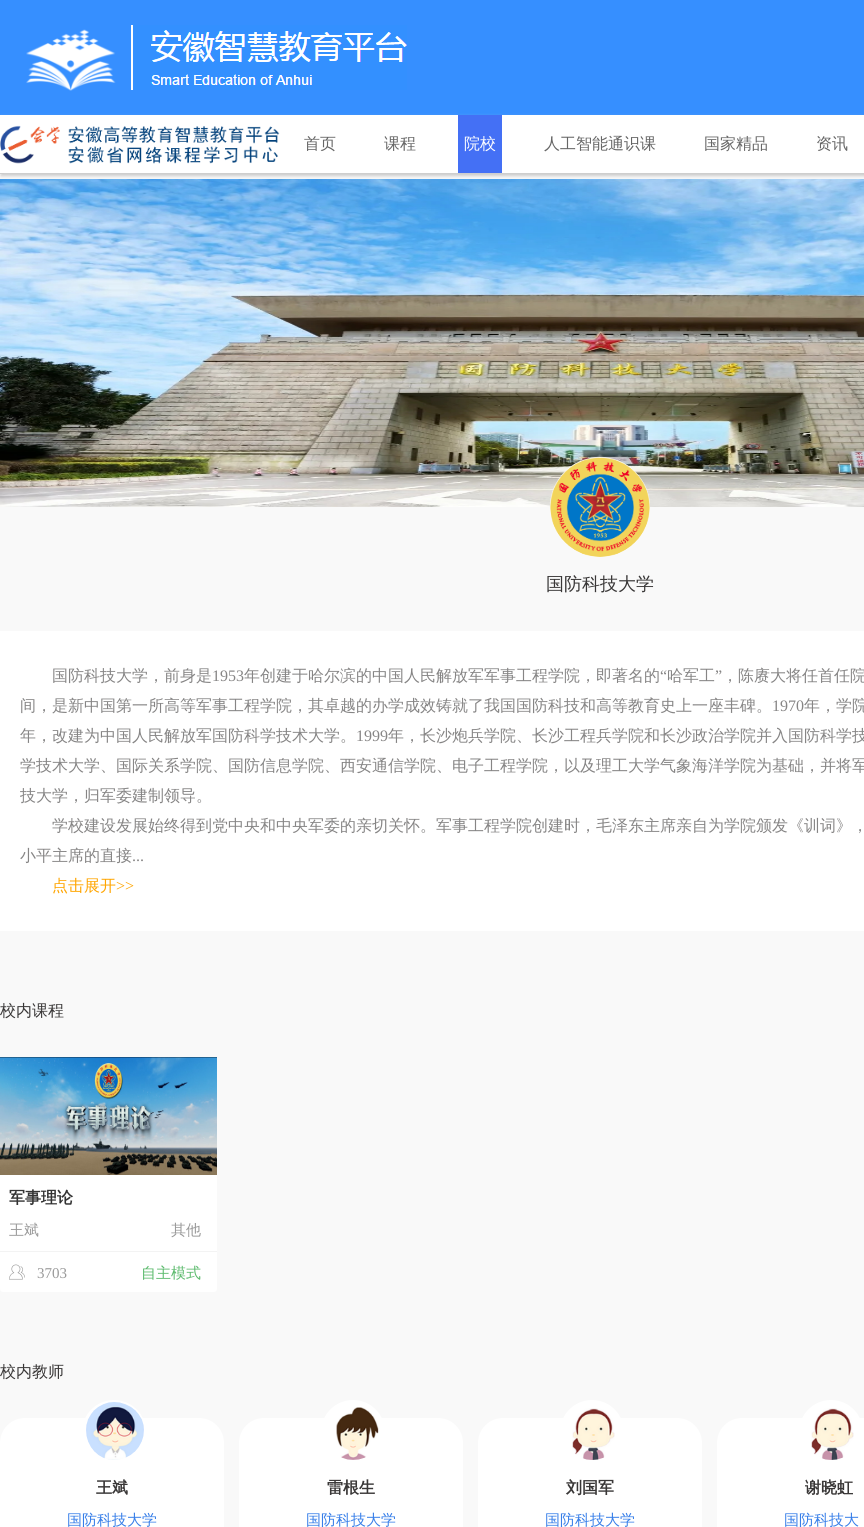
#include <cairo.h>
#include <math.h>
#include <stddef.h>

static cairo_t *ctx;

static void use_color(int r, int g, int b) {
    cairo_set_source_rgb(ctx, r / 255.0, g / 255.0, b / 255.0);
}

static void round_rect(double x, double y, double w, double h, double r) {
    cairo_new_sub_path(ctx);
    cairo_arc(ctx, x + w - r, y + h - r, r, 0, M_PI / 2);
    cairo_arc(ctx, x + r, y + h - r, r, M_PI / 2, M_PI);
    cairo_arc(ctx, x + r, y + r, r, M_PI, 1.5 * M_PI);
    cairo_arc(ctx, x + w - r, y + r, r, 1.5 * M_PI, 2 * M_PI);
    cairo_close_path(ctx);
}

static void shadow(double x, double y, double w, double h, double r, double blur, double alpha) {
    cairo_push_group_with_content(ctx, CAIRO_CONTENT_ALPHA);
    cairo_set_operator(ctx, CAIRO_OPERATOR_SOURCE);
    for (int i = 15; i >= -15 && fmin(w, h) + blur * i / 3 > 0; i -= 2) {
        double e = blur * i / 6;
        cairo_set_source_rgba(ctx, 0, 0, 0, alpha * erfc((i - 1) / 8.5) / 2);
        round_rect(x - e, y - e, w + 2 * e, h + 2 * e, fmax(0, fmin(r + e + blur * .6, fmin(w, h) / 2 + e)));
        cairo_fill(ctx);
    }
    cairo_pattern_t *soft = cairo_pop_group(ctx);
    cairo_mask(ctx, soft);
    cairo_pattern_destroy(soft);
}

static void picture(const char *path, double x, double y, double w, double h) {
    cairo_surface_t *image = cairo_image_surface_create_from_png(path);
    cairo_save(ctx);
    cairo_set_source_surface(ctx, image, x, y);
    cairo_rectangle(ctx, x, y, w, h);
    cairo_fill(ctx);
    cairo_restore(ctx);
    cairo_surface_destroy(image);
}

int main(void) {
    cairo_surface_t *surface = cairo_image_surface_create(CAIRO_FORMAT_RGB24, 864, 1527);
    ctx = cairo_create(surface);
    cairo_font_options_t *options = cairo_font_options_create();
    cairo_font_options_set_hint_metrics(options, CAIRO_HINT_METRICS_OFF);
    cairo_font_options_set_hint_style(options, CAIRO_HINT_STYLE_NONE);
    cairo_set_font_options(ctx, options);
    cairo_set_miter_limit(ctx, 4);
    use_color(249, 249, 249);
    cairo_paint(ctx);
    use_color(54, 143, 255);
    cairo_rectangle(ctx, 0, 0, 864, 115);
    cairo_fill(ctx);
    picture("img1.png", 26, 29, 90, 62);
    picture("img2.png", 131, 25, 276, 65);
    use_color(204, 204, 204);
    shadow(1, 117, 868, 59, 0, 1.5, 1);
    use_color(255, 255, 255);
    cairo_rectangle(ctx, 0, 115, 864, 58);
    cairo_fill(ctx);
    use_color(204, 204, 204);
    cairo_rectangle(ctx, 0, 173, 4, 1);
    cairo_fill(ctx);
    picture("img3.png", 0, 125, 280, 39);
    cairo_select_font_face(ctx, "WenQuanYi Zen Hei Medium", CAIRO_FONT_SLANT_NORMAL, CAIRO_FONT_WEIGHT_NORMAL);
    cairo_set_font_size(ctx, 16);
    use_color(102, 102, 102);
    cairo_move_to(ctx, 304, 149);
    cairo_show_text(ctx, "首页");
    cairo_move_to(ctx, 384, 149);
    cairo_show_text(ctx, "课程");
    use_color(68, 112, 245);
    cairo_rectangle(ctx, 458, 115, 44, 58);
    cairo_fill(ctx);
    use_color(255, 255, 255);
    cairo_move_to(ctx, 464, 149);
    cairo_show_text(ctx, "院校");
    use_color(102, 102, 102);
    cairo_move_to(ctx, 544, 149);
    cairo_show_text(ctx, "人工智能通识课");
    cairo_move_to(ctx, 704, 149);
    cairo_show_text(ctx, "国家精品");
    cairo_move_to(ctx, 816, 149);
    cairo_show_text(ctx, "资讯");
    picture("img4.png", 0, 179, 864, 328);
    picture("img5.png", 550, 457, 100, 100);
    cairo_set_font_size(ctx, 18);
    use_color(57, 55, 55);
    cairo_move_to(ctx, 546, 590);
    cairo_show_text(ctx, "国防科技大学");
    use_color(255, 255, 255);
    cairo_rectangle(ctx, 0, 631, 864, 300);
    cairo_fill(ctx);
    cairo_set_font_size(ctx, 16);
    use_color(134, 133, 133);
    cairo_move_to(ctx, 52, 681);
    cairo_show_text(ctx, "国防科技大学，前身是");
    cairo_select_font_face(ctx, "Liberation Serif", CAIRO_FONT_SLANT_NORMAL, CAIRO_FONT_WEIGHT_NORMAL);
    cairo_move_to(ctx, 212, 681);
    cairo_show_text(ctx, "1953");
    cairo_select_font_face(ctx, "WenQuanYi Zen Hei Medium", CAIRO_FONT_SLANT_NORMAL, CAIRO_FONT_WEIGHT_NORMAL);
    cairo_move_to(ctx, 244, 681);
    cairo_show_text(ctx, "年创建于哈尔滨的中国人民解放军军事工程学院，即著名的");
    cairo_select_font_face(ctx, "Liberation Serif", CAIRO_FONT_SLANT_NORMAL, CAIRO_FONT_WEIGHT_NORMAL);
    cairo_move_to(ctx, 660, 681);
    cairo_show_text(ctx, "“");
    cairo_select_font_face(ctx, "WenQuanYi Zen Hei Medium", CAIRO_FONT_SLANT_NORMAL, CAIRO_FONT_WEIGHT_NORMAL);
    cairo_move_to(ctx, 667, 681);
    cairo_show_text(ctx, "哈军工");
    cairo_select_font_face(ctx, "Liberation Serif", CAIRO_FONT_SLANT_NORMAL, CAIRO_FONT_WEIGHT_NORMAL);
    cairo_move_to(ctx, 715, 681);
    cairo_show_text(ctx, "”");
    cairo_select_font_face(ctx, "WenQuanYi Zen Hei Medium", CAIRO_FONT_SLANT_NORMAL, CAIRO_FONT_WEIGHT_NORMAL);
    cairo_move_to(ctx, 722, 681);
    cairo_show_text(ctx, "，陈赓大将任首任院");
    cairo_move_to(ctx, 20, 711);
    cairo_show_text(ctx, "间，是新中国第一所高等军事工程学院，其卓越的办学成效铸就了我国国防科技和高等教育史上一座丰碑。");
    cairo_select_font_face(ctx, "Liberation Serif", CAIRO_FONT_SLANT_NORMAL, CAIRO_FONT_WEIGHT_NORMAL);
    cairo_move_to(ctx, 772, 711);
    cairo_show_text(ctx, "1970");
    cairo_select_font_face(ctx, "WenQuanYi Zen Hei Medium", CAIRO_FONT_SLANT_NORMAL, CAIRO_FONT_WEIGHT_NORMAL);
    cairo_move_to(ctx, 804, 711);
    cairo_show_text(ctx, "年，学院");
    cairo_move_to(ctx, 20, 741);
    cairo_show_text(ctx, "年，改建为中国人民解放军国防科学技术大学。");
    cairo_select_font_face(ctx, "Liberation Serif", CAIRO_FONT_SLANT_NORMAL, CAIRO_FONT_WEIGHT_NORMAL);
    cairo_move_to(ctx, 356, 741);
    cairo_show_text(ctx, "1999");
    cairo_select_font_face(ctx, "WenQuanYi Zen Hei Medium", CAIRO_FONT_SLANT_NORMAL, CAIRO_FONT_WEIGHT_NORMAL);
    cairo_move_to(ctx, 388, 741);
    cairo_show_text(ctx, "年，长沙炮兵学院、长沙工程兵学院和长沙政治学院并入国防科学技");
    cairo_move_to(ctx, 20, 771);
    cairo_show_text(ctx, "学技术大学、国际关系学院、国防信息学院、西安通信学院、电子工程学院，以及理工大学气象海洋学院为基础，并将军");
    cairo_move_to(ctx, 20, 801);
    cairo_show_text(ctx, "技大学，归军委建制领导。");
    cairo_move_to(ctx, 52, 831);
    cairo_show_text(ctx, "学校建设发展始终得到党中央和中央军委的亲切关怀。军事工程学院创建时，毛泽东主席亲自为学院颁发《训词》，");
    cairo_move_to(ctx, 20, 861);
    cairo_show_text(ctx, "小平主席的直接");
    cairo_select_font_face(ctx, "Liberation Serif", CAIRO_FONT_SLANT_NORMAL, CAIRO_FONT_WEIGHT_NORMAL);
    cairo_move_to(ctx, 132, 861);
    cairo_show_text(ctx, "...");
    cairo_select_font_face(ctx, "WenQuanYi Zen Hei Medium", CAIRO_FONT_SLANT_NORMAL, CAIRO_FONT_WEIGHT_NORMAL);
    use_color(255, 165, 0);
    cairo_move_to(ctx, 52, 891);
    cairo_show_text(ctx, "点击展开");
    cairo_select_font_face(ctx, "Liberation Serif", CAIRO_FONT_SLANT_NORMAL, CAIRO_FONT_WEIGHT_NORMAL);
    cairo_move_to(ctx, 116, 891);
    cairo_show_text(ctx, ">>");
    cairo_select_font_face(ctx, "WenQuanYi Zen Hei Medium", CAIRO_FONT_SLANT_NORMAL, CAIRO_FONT_WEIGHT_NORMAL);
    use_color(57, 55, 55);
    cairo_move_to(ctx, 0, 1016);
    cairo_show_text(ctx, "校内课程");
    use_color(255, 255, 255);
    round_rect(0, 1057, 217, 235, 3);
    cairo_fill(ctx);
    picture("img6.png", 0, 1057, 217, 118);
    cairo_select_font_face(ctx, "WenQuanYi Zen Hei", CAIRO_FONT_SLANT_NORMAL, CAIRO_FONT_WEIGHT_BOLD);
    use_color(51, 51, 51);
    cairo_move_to(ctx, 9, 1203);
    cairo_show_text(ctx, "军事理论");
    use_color(243, 243, 243);
    cairo_rectangle(ctx, 0, 1251, 217, 1);
    cairo_fill(ctx);
    cairo_select_font_face(ctx, "WenQuanYi Zen Hei Medium", CAIRO_FONT_SLANT_NORMAL, CAIRO_FONT_WEIGHT_NORMAL);
    cairo_set_font_size(ctx, 15);
    use_color(153, 153, 153);
    cairo_move_to(ctx, 9, 1235);
    cairo_show_text(ctx, "王斌");
    cairo_move_to(ctx, 171, 1235);
    cairo_show_text(ctx, "其他");
    picture("img7.png", 9, 1264, 16, 16);
    cairo_select_font_face(ctx, "Liberation Serif", CAIRO_FONT_SLANT_NORMAL, CAIRO_FONT_WEIGHT_NORMAL);
    cairo_move_to(ctx, 37, 1278);
    cairo_show_text(ctx, "3703");
    cairo_select_font_face(ctx, "WenQuanYi Zen Hei Medium", CAIRO_FONT_SLANT_NORMAL, CAIRO_FONT_WEIGHT_NORMAL);
    use_color(91, 186, 108);
    cairo_move_to(ctx, 141, 1278);
    cairo_show_text(ctx, "自主模式");
    cairo_set_font_size(ctx, 16);
    use_color(57, 55, 55);
    cairo_move_to(ctx, 0, 1377);
    cairo_show_text(ctx, "校内教师");
    use_color(255, 255, 255);
    round_rect(0, 1418, 224, 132, 25);
    cairo_fill(ctx);
    cairo_arc(ctx, 114, 1432, 32, 0, 2 * M_PI);
    cairo_fill(ctx);
    picture("img8.png", 86, 1402, 58, 58);
    cairo_select_font_face(ctx, "WenQuanYi Zen Hei", CAIRO_FONT_SLANT_NORMAL, CAIRO_FONT_WEIGHT_BOLD);
    use_color(57, 55, 55);
    cairo_move_to(ctx, 96, 1493);
    cairo_show_text(ctx, "王斌");
    cairo_select_font_face(ctx, "WenQuanYi Zen Hei Medium", CAIRO_FONT_SLANT_NORMAL, CAIRO_FONT_WEIGHT_NORMAL);
    cairo_set_font_size(ctx, 15);
    use_color(55, 126, 232);
    cairo_move_to(ctx, 67, 1525);
    cairo_show_text(ctx, "国防科技大学");
    use_color(255, 255, 255);
    round_rect(239, 1418, 224, 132, 25);
    cairo_fill(ctx);
    cairo_arc(ctx, 353, 1432, 32, 0, 2 * M_PI);
    cairo_fill(ctx);
    picture("img9.png", 336, 1407, 43, 53);
    cairo_select_font_face(ctx, "WenQuanYi Zen Hei", CAIRO_FONT_SLANT_NORMAL, CAIRO_FONT_WEIGHT_BOLD);
    cairo_set_font_size(ctx, 16);
    use_color(57, 55, 55);
    cairo_move_to(ctx, 327, 1493);
    cairo_show_text(ctx, "雷根生");
    cairo_select_font_face(ctx, "WenQuanYi Zen Hei Medium", CAIRO_FONT_SLANT_NORMAL, CAIRO_FONT_WEIGHT_NORMAL);
    cairo_set_font_size(ctx, 15);
    use_color(55, 126, 232);
    cairo_move_to(ctx, 306, 1525);
    cairo_show_text(ctx, "国防科技大学");
    use_color(255, 255, 255);
    round_rect(478, 1418, 224, 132, 25);
    cairo_fill(ctx);
    cairo_arc(ctx, 592, 1432, 32, 0, 2 * M_PI);
    cairo_fill(ctx);
    picture("img10.png", 572, 1408, 43, 52);
    cairo_select_font_face(ctx, "WenQuanYi Zen Hei", CAIRO_FONT_SLANT_NORMAL, CAIRO_FONT_WEIGHT_BOLD);
    cairo_set_font_size(ctx, 16);
    use_color(57, 55, 55);
    cairo_move_to(ctx, 566, 1493);
    cairo_show_text(ctx, "刘国军");
    cairo_select_font_face(ctx, "WenQuanYi Zen Hei Medium", CAIRO_FONT_SLANT_NORMAL, CAIRO_FONT_WEIGHT_NORMAL);
    cairo_set_font_size(ctx, 15);
    use_color(55, 126, 232);
    cairo_move_to(ctx, 545, 1525);
    cairo_show_text(ctx, "国防科技大学");
    use_color(255, 255, 255);
    round_rect(717, 1418, 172, 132, 25);
    cairo_fill(ctx);
    cairo_arc(ctx, 831, 1432, 32, 0, 2 * M_PI);
    cairo_fill(ctx);
    picture("img11.png", 811, 1408, 43, 52);
    cairo_select_font_face(ctx, "WenQuanYi Zen Hei", CAIRO_FONT_SLANT_NORMAL, CAIRO_FONT_WEIGHT_BOLD);
    cairo_set_font_size(ctx, 16);
    use_color(57, 55, 55);
    cairo_move_to(ctx, 805, 1493);
    cairo_show_text(ctx, "谢晓虹");
    cairo_select_font_face(ctx, "WenQuanYi Zen Hei Medium", CAIRO_FONT_SLANT_NORMAL, CAIRO_FONT_WEIGHT_NORMAL);
    cairo_set_font_size(ctx, 15);
    use_color(55, 126, 232);
    cairo_move_to(ctx, 784, 1525);
    cairo_show_text(ctx, "国防科技大");
    cairo_surface_write_to_png(surface, "result.png");
    cairo_font_options_destroy(options);
    cairo_destroy(ctx);
    cairo_surface_destroy(surface);
    return 0;
}
